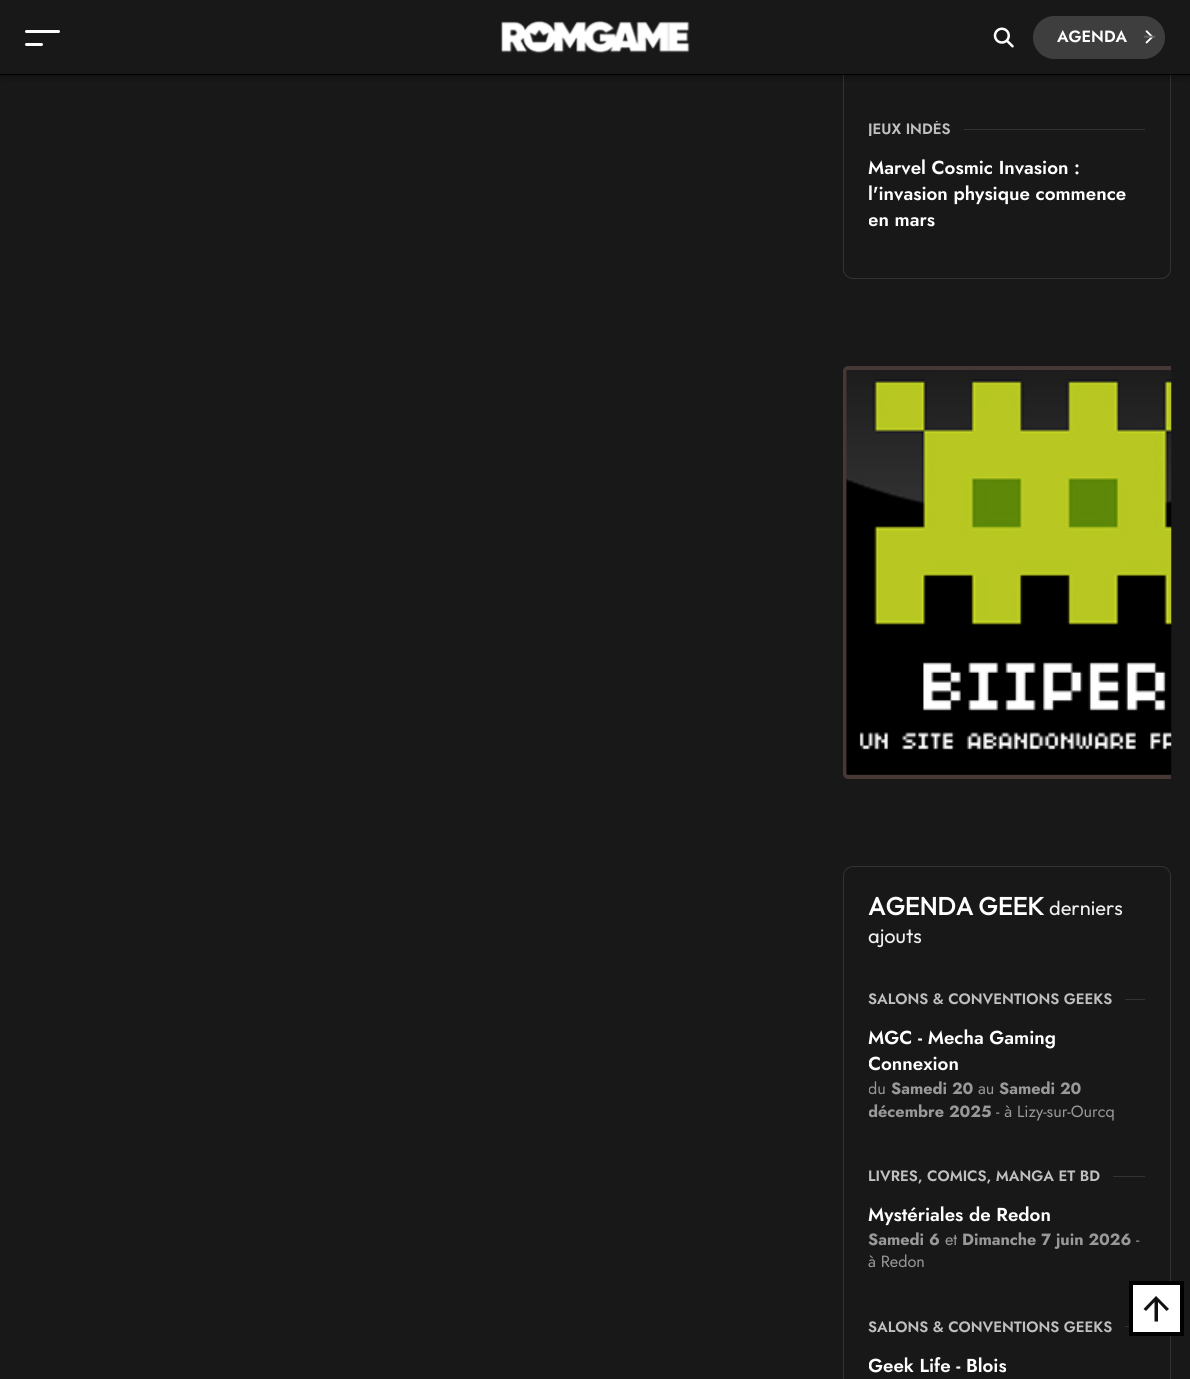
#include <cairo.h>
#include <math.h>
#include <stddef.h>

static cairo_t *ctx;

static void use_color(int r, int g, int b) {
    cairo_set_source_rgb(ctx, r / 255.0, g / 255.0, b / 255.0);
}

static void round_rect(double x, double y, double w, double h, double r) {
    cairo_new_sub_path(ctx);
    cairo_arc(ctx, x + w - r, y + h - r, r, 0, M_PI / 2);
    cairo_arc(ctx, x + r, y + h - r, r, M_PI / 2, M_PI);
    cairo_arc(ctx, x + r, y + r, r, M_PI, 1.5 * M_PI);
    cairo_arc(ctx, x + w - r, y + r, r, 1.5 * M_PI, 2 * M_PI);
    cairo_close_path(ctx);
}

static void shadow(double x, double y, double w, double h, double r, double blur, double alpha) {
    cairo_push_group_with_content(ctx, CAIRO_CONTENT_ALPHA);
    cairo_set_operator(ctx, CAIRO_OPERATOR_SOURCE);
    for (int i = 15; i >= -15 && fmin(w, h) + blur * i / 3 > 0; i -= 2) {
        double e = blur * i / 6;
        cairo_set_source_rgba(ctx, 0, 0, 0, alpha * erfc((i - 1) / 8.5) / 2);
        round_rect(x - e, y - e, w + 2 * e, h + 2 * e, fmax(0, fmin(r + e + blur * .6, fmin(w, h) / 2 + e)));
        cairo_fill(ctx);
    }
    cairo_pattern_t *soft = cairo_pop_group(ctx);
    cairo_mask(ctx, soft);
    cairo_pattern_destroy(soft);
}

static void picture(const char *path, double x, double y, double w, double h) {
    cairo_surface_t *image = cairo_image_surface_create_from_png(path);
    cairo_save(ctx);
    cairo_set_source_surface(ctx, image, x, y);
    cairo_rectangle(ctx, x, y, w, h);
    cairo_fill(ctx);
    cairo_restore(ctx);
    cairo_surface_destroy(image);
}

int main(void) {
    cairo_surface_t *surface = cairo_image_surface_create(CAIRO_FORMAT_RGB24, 1190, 1379);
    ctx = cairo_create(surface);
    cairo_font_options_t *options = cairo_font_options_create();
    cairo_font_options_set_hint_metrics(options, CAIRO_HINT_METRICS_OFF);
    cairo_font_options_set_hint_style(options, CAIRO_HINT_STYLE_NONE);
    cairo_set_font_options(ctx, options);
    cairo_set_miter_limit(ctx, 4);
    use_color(24, 24, 24);
    cairo_paint(ctx);
    round_rect(843.5, -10.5, 327, 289, 9.5);
    use_color(51, 51, 51);
    cairo_set_line_width(ctx, 1);
    cairo_stroke(ctx);
    use_color(0, 0, 0);
    shadow(0, 3, 1190, 75, 0, 3, 0.3);
    use_color(24, 24, 24);
    cairo_rectangle(ctx, 0, 0, 1190, 74);
    cairo_fill(ctx);
    use_color(0, 0, 0);
    cairo_rectangle(ctx, 0, 74, 1190, 1);
    cairo_fill(ctx);
    use_color(255, 255, 255);
    round_rect(25, 30, 35, 3, 1.5);
    cairo_fill(ctx);
    round_rect(25, 43, 18, 3, 1.5);
    cairo_fill(ctx);
    picture("img1.png", 501, 21, 189, 33);
    picture("img2.png", 993, 27, 21, 21);
    use_color(62, 62, 62);
    round_rect(1033, 16, 132, 43, 21.5);
    cairo_fill(ctx);
    cairo_select_font_face(ctx, "Jost SemiBold", CAIRO_FONT_SLANT_NORMAL, CAIRO_FONT_WEIGHT_NORMAL);
    cairo_set_font_size(ctx, 16.25);
    use_color(255, 255, 255);
    cairo_move_to(ctx, 1057, 42);
    cairo_show_text(ctx, "AGENDA");
    picture("img3.png", 1145, 30, 9, 14);
    cairo_select_font_face(ctx, "Jost", CAIRO_FONT_SLANT_NORMAL, CAIRO_FONT_WEIGHT_BOLD);
    cairo_set_font_size(ctx, 14);
    use_color(103, 103, 103);
    cairo_move_to(ctx, 1143, 40);
    cairo_show_text(ctx, "—");
    cairo_save(ctx);
    cairo_rectangle(ctx, 869, 121, 276, 15);
    cairo_clip(ctx);
    cairo_select_font_face(ctx, "Jost SemiBold", CAIRO_FONT_SLANT_NORMAL, CAIRO_FONT_WEIGHT_NORMAL);
    cairo_set_font_size(ctx, 15);
    use_color(192, 192, 192);
    cairo_move_to(ctx, 868, 134);
    cairo_show_text(ctx, "JEUX INDÉS");
    cairo_restore(ctx);
    use_color(51, 51, 51);
    cairo_rectangle(ctx, 964, 129, 181, 1);
    cairo_fill(ctx);
    cairo_select_font_face(ctx, "Jost SemiBold", CAIRO_FONT_SLANT_NORMAL, CAIRO_FONT_WEIGHT_NORMAL);
    cairo_set_font_size(ctx, 18.75);
    use_color(255, 255, 255);
    cairo_move_to(ctx, 868, 174);
    cairo_show_text(ctx, "Marvel Cosmic Invasion :");
    cairo_move_to(ctx, 868, 200);
    cairo_show_text(ctx, "l'invasion physique commence");
    cairo_save(ctx);
    cairo_rectangle(ctx, 869, 0, 276, 234);
    cairo_clip(ctx);
    cairo_move_to(ctx, 868, 226);
    cairo_show_text(ctx, "en mars");
    cairo_restore(ctx);
    cairo_save(ctx);
    cairo_rectangle(ctx, 780, 0, 391, 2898);
    cairo_clip(ctx);
    round_rect(845, 368, 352, 409, 3);
    use_color(70, 57, 53);
    cairo_set_line_width(ctx, 4);
    cairo_stroke(ctx);
    cairo_restore(ctx);
    picture("img4.png", 846, 370, 326, 405);
    round_rect(843.5, 866.5, 327, 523, 9.5);
    use_color(51, 51, 51);
    cairo_stroke(ctx);
    cairo_select_font_face(ctx, "Outfit", CAIRO_FONT_SLANT_NORMAL, CAIRO_FONT_WEIGHT_BOLD);
    cairo_set_font_size(ctx, 25);
    use_color(255, 255, 255);
    cairo_move_to(ctx, 868, 915);
    cairo_show_text(ctx, "AGENDA GEEK");
    cairo_select_font_face(ctx, "Outfit Thin", CAIRO_FONT_SLANT_NORMAL, CAIRO_FONT_WEIGHT_NORMAL);
    cairo_set_font_size(ctx, 20);
    use_color(240, 240, 240);
    cairo_move_to(ctx, 1049, 915);
    cairo_show_text(ctx, "derniers");
    cairo_move_to(ctx, 868, 943);
    cairo_show_text(ctx, "ajouts");
    cairo_select_font_face(ctx, "Jost SemiBold", CAIRO_FONT_SLANT_NORMAL, CAIRO_FONT_WEIGHT_NORMAL);
    cairo_set_font_size(ctx, 15);
    use_color(192, 192, 192);
    cairo_move_to(ctx, 868, 1004);
    cairo_show_text(ctx, "SALONS & CONVENTIONS GEEKS");
    use_color(51, 51, 51);
    cairo_rectangle(ctx, 1125, 999, 20, 1);
    cairo_fill(ctx);
    cairo_set_font_size(ctx, 18.75);
    use_color(255, 255, 255);
    cairo_move_to(ctx, 868, 1044);
    cairo_show_text(ctx, "MGC - Mecha Gaming");
    cairo_save(ctx);
    cairo_rectangle(ctx, 869, 991, 276, 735);
    cairo_clip(ctx);
    cairo_move_to(ctx, 868, 1070);
    cairo_show_text(ctx, "Connexion");
    cairo_select_font_face(ctx, "Jost", CAIRO_FONT_SLANT_NORMAL, CAIRO_FONT_WEIGHT_NORMAL);
    cairo_set_font_size(ctx, 16.25);
    use_color(153, 153, 153);
    cairo_move_to(ctx, 868, 1094);
    cairo_show_text(ctx, "du");
    cairo_restore(ctx);
    cairo_select_font_face(ctx, "Jost", CAIRO_FONT_SLANT_NORMAL, CAIRO_FONT_WEIGHT_BOLD);
    cairo_set_font_size(ctx, 16.25);
    use_color(153, 153, 153);
    cairo_move_to(ctx, 891, 1094);
    cairo_show_text(ctx, "Samedi 20");
    cairo_select_font_face(ctx, "Jost", CAIRO_FONT_SLANT_NORMAL, CAIRO_FONT_WEIGHT_NORMAL);
    cairo_move_to(ctx, 978, 1094);
    cairo_show_text(ctx, "au");
    cairo_select_font_face(ctx, "Jost", CAIRO_FONT_SLANT_NORMAL, CAIRO_FONT_WEIGHT_BOLD);
    cairo_move_to(ctx, 999, 1094);
    cairo_show_text(ctx, "Samedi 20");
    cairo_save(ctx);
    cairo_rectangle(ctx, 869, 991, 276, 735);
    cairo_clip(ctx);
    cairo_move_to(ctx, 868, 1117);
    cairo_show_text(ctx, "décembre 2025");
    cairo_restore(ctx);
    cairo_select_font_face(ctx, "Jost", CAIRO_FONT_SLANT_NORMAL, CAIRO_FONT_WEIGHT_NORMAL);
    cairo_move_to(ctx, 996, 1117);
    cairo_show_text(ctx, "- à Lizy-sur-Ourcq");
    cairo_select_font_face(ctx, "Jost SemiBold", CAIRO_FONT_SLANT_NORMAL, CAIRO_FONT_WEIGHT_NORMAL);
    cairo_set_font_size(ctx, 15);
    use_color(192, 192, 192);
    cairo_move_to(ctx, 868, 1181);
    cairo_show_text(ctx, "LIVRES, COMICS, MANGA ET BD");
    use_color(51, 51, 51);
    cairo_rectangle(ctx, 1113, 1176, 32, 1);
    cairo_fill(ctx);
    cairo_set_font_size(ctx, 18.75);
    use_color(255, 255, 255);
    cairo_move_to(ctx, 868, 1221);
    cairo_show_text(ctx, "Mystériales de Redon");
    cairo_select_font_face(ctx, "Jost", CAIRO_FONT_SLANT_NORMAL, CAIRO_FONT_WEIGHT_BOLD);
    cairo_set_font_size(ctx, 16.25);
    use_color(153, 153, 153);
    cairo_move_to(ctx, 868, 1245);
    cairo_show_text(ctx, "Samedi 6");
    cairo_select_font_face(ctx, "Jost", CAIRO_FONT_SLANT_NORMAL, CAIRO_FONT_WEIGHT_NORMAL);
    cairo_move_to(ctx, 945, 1245);
    cairo_show_text(ctx, "et");
    cairo_select_font_face(ctx, "Jost", CAIRO_FONT_SLANT_NORMAL, CAIRO_FONT_WEIGHT_BOLD);
    cairo_move_to(ctx, 962, 1245);
    cairo_show_text(ctx, "Dimanche 7 juin 2026");
    cairo_select_font_face(ctx, "Jost", CAIRO_FONT_SLANT_NORMAL, CAIRO_FONT_WEIGHT_NORMAL);
    cairo_move_to(ctx, 1136, 1245);
    cairo_show_text(ctx, "-");
    cairo_move_to(ctx, 868, 1267);
    cairo_show_text(ctx, "à Redon");
    cairo_select_font_face(ctx, "Jost SemiBold", CAIRO_FONT_SLANT_NORMAL, CAIRO_FONT_WEIGHT_NORMAL);
    cairo_set_font_size(ctx, 15);
    use_color(192, 192, 192);
    cairo_move_to(ctx, 868, 1332);
    cairo_show_text(ctx, "SALONS & CONVENTIONS GEEKS");
    use_color(51, 51, 51);
    cairo_rectangle(ctx, 1125, 1326, 4, 1);
    cairo_fill(ctx);
    cairo_save(ctx);
    cairo_rectangle(ctx, 869, 991, 276, 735);
    cairo_clip(ctx);
    cairo_set_font_size(ctx, 18.75);
    use_color(255, 255, 255);
    cairo_move_to(ctx, 868, 1372);
    cairo_show_text(ctx, "Geek Life - Blois");
    cairo_restore(ctx);
    use_color(255, 255, 255);
    cairo_rectangle(ctx, 1131, 1283, 51, 51);
    cairo_fill_preserve(ctx);
    use_color(0, 0, 0);
    cairo_set_line_width(ctx, 4);
    cairo_stroke(ctx);
    use_color(17, 17, 17);
    cairo_new_path(ctx);
    cairo_move_to(ctx, 1143.5, 1309);
    cairo_line_to(ctx, 1146, 1311);
    cairo_line_to(ctx, 1154.5, 1302);
    cairo_line_to(ctx, 1154.5, 1321.5);
    cairo_line_to(ctx, 1158, 1321.5);
    cairo_line_to(ctx, 1158, 1302);
    cairo_line_to(ctx, 1166.5, 1311);
    cairo_line_to(ctx, 1169, 1309);
    cairo_line_to(ctx, 1156, 1296);
    cairo_close_path(ctx);
    cairo_fill(ctx);
    cairo_surface_write_to_png(surface, "result.png");
    cairo_font_options_destroy(options);
    cairo_destroy(ctx);
    cairo_surface_destroy(surface);
    return 0;
}
